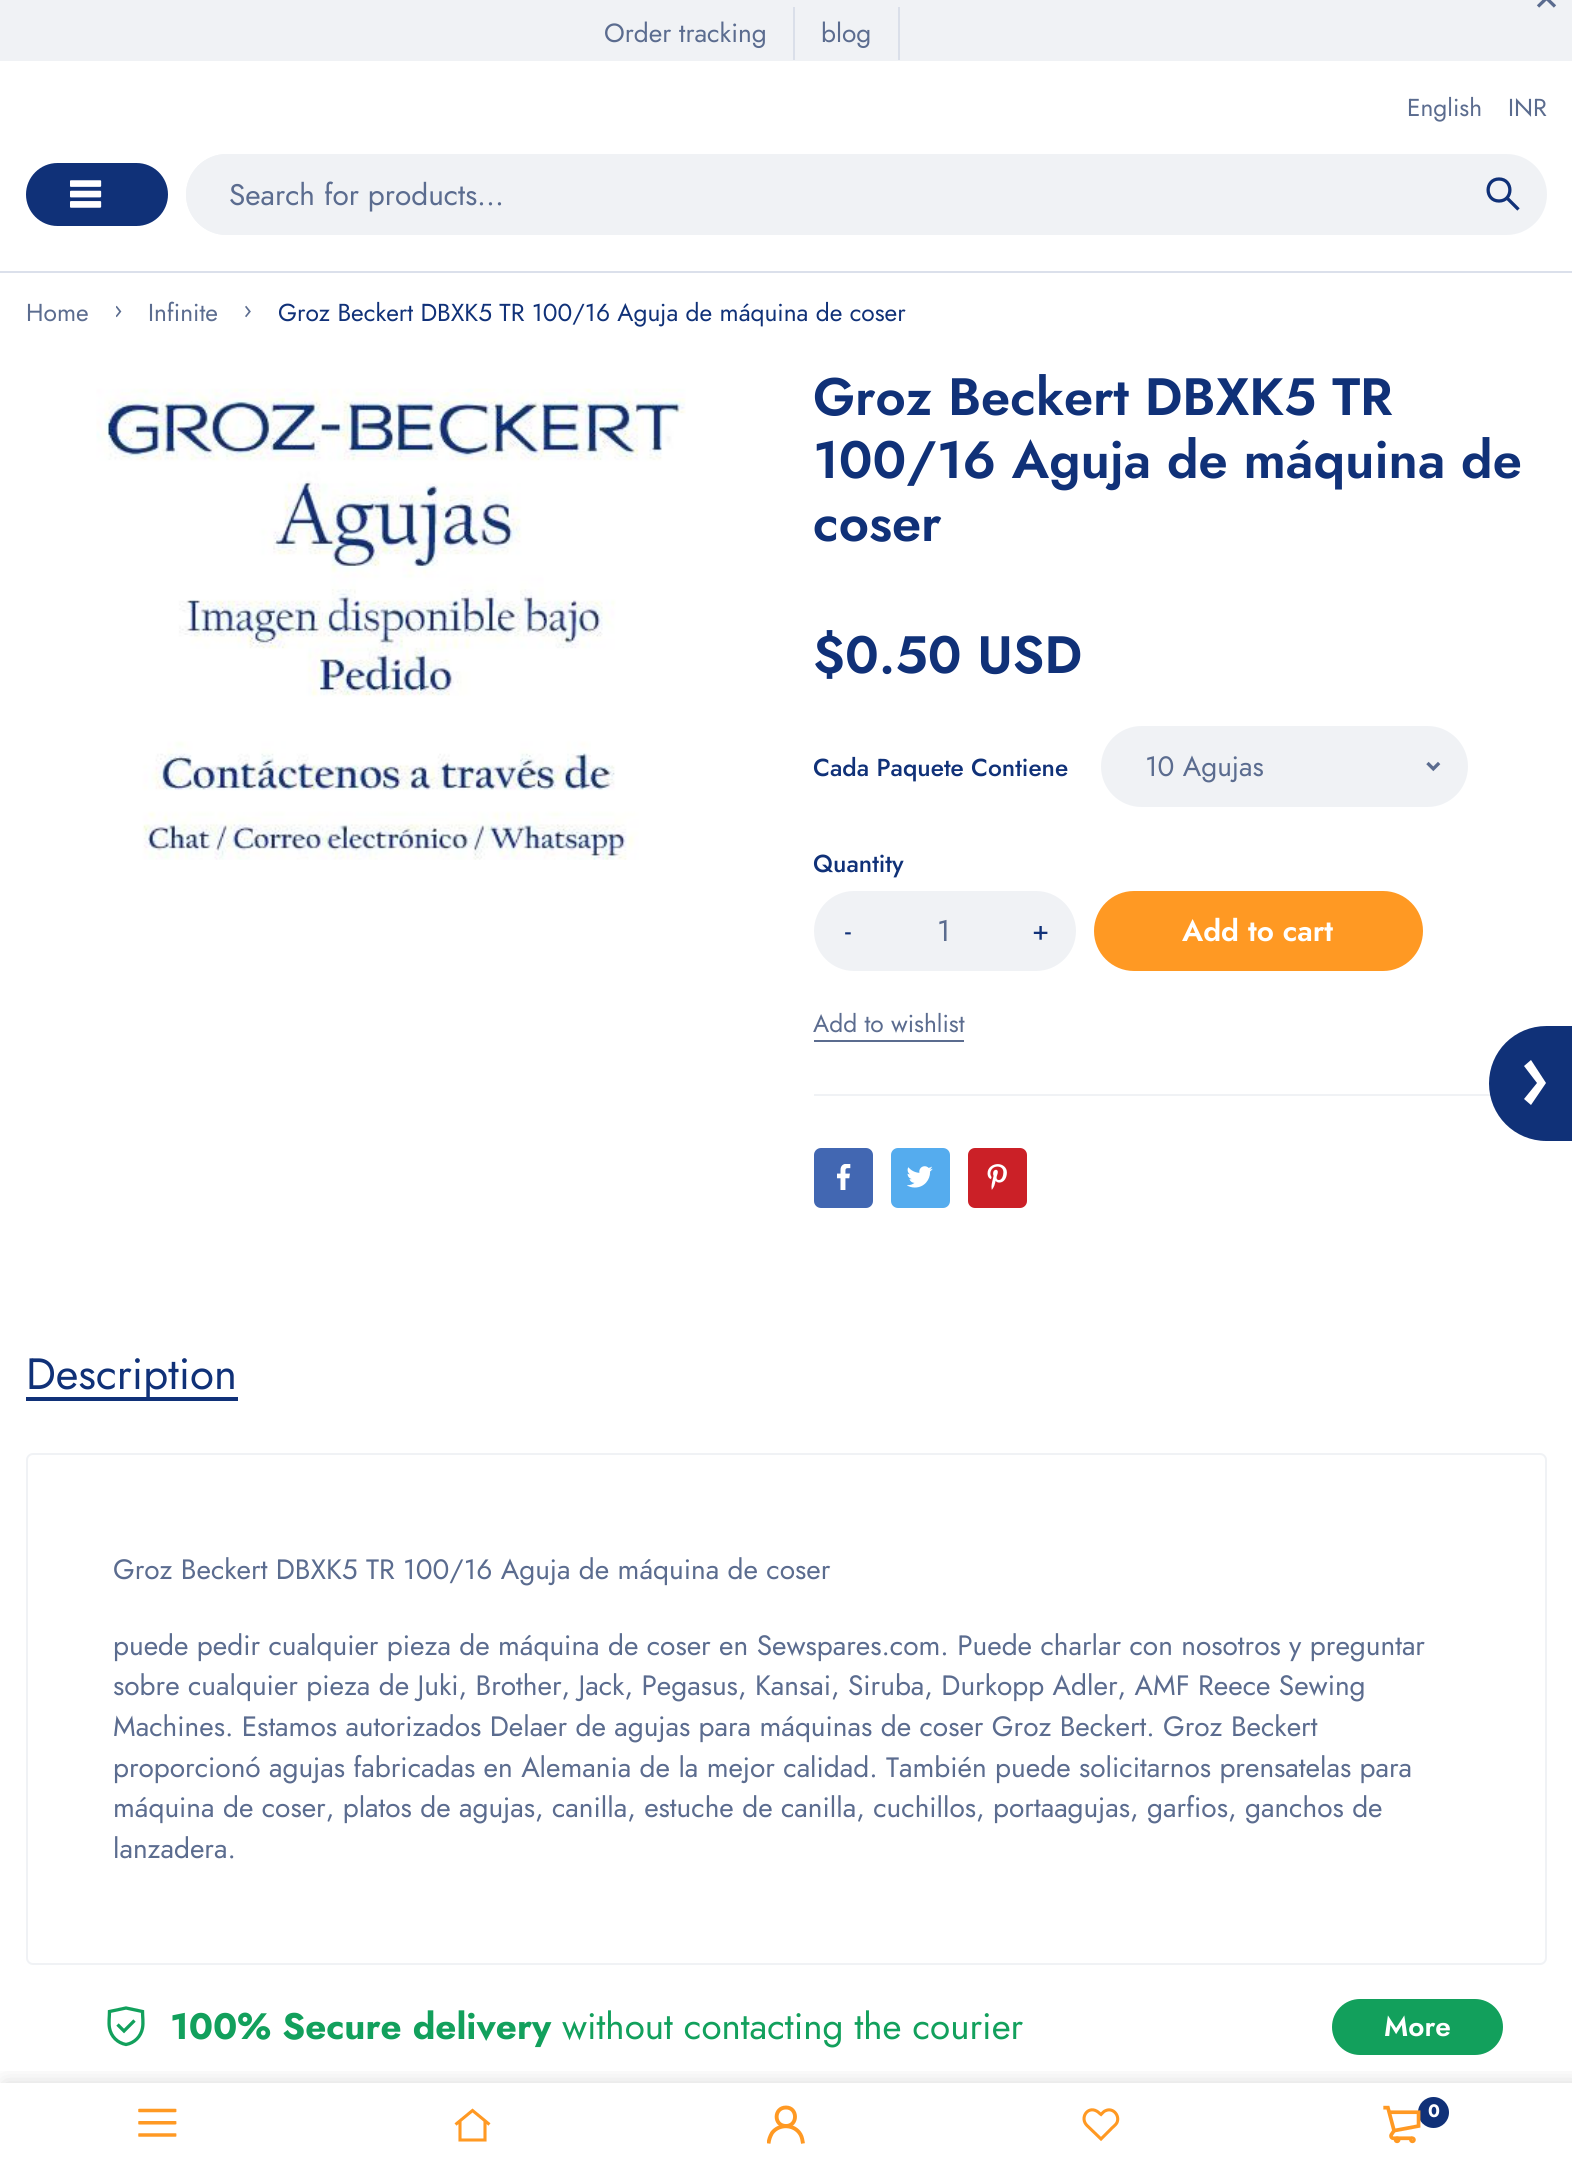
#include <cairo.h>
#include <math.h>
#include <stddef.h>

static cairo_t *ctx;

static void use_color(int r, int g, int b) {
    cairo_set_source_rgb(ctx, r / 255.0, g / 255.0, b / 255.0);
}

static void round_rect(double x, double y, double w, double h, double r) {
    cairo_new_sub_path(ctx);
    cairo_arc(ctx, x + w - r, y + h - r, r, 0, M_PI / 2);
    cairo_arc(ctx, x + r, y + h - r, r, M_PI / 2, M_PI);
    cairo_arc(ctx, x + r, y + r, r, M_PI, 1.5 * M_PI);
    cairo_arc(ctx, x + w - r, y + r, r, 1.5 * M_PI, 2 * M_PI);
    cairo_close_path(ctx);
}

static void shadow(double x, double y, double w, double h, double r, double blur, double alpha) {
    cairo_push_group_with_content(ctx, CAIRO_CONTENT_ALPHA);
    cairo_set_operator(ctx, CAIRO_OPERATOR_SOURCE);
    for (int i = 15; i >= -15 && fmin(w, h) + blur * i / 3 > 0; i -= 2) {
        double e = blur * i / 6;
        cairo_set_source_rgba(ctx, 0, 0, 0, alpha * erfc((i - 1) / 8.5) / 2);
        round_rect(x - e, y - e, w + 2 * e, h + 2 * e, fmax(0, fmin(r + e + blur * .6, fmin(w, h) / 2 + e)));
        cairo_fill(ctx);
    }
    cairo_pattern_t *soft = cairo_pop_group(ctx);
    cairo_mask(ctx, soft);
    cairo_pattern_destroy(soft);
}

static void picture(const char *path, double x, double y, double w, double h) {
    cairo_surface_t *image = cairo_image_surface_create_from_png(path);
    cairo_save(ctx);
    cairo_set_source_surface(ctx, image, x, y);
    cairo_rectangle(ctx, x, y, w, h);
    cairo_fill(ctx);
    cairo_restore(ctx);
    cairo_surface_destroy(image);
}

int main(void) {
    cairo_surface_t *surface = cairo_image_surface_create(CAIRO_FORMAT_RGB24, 1572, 2166);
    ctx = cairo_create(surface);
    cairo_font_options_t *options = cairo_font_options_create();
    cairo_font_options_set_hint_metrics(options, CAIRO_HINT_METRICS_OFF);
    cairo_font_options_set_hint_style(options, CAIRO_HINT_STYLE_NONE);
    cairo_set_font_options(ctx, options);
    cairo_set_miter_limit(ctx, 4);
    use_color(255, 255, 255);
    cairo_paint(ctx);
    use_color(240, 242, 245);
    cairo_rectangle(ctx, 0, 0, 1572, 61);
    cairo_fill(ctx);
    cairo_new_path(ctx);
    cairo_move_to(ctx, 1555, -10);
    cairo_line_to(ctx, 1538, 6.5);
    cairo_move_to(ctx, 1538, -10);
    cairo_line_to(ctx, 1555, 6.5);
    use_color(91, 108, 143);
    cairo_set_line_width(ctx, 3.3);
    cairo_stroke(ctx);
    use_color(218, 223, 233);
    cairo_rectangle(ctx, 898, 7, 2, 53);
    cairo_fill(ctx);
    cairo_rectangle(ctx, 793, 7, 2, 53);
    cairo_fill(ctx);
    cairo_select_font_face(ctx, "Jost", CAIRO_FONT_SLANT_NORMAL, CAIRO_FONT_WEIGHT_NORMAL);
    cairo_set_font_size(ctx, 26.25);
    use_color(91, 108, 143);
    cairo_move_to(ctx, 604, 42);
    cairo_show_text(ctx, "Order tracking");
    cairo_move_to(ctx, 821, 42);
    cairo_show_text(ctx, "blog");
    cairo_set_font_size(ctx, 24.5);
    cairo_move_to(ctx, 1407, 116);
    cairo_show_text(ctx, "English");
    cairo_move_to(ctx, 1508, 116);
    cairo_show_text(ctx, "INR");
    use_color(16, 49, 120);
    round_rect(26, 163, 142, 63, 31.5);
    cairo_fill(ctx);
    picture("img1.png", 70, 180, 32, 28);
    use_color(240, 242, 245);
    round_rect(186, 154, 1361, 81, 40.5);
    cairo_fill(ctx);
    round_rect(186, 154, 1274, 81, 40.5);
    cairo_fill(ctx);
    cairo_set_font_size(ctx, 29.75);
    use_color(91, 108, 143);
    cairo_move_to(ctx, 229, 205);
    cairo_show_text(ctx, "Search for products...");
    cairo_new_path(ctx);
    cairo_move_to(ctx, 1499, 201);
    cairo_curve_to(ctx, 1513.5, 201, 1513.5, 179, 1499, 179);
    cairo_curve_to(ctx, 1484.5, 179, 1484.5, 201, 1499, 201);
    cairo_close_path(ctx);
    cairo_move_to(ctx, 1518.5, 209.5);
    cairo_line_to(ctx, 1506.5, 197.5);
    use_color(16, 49, 120);
    cairo_stroke(ctx);
    use_color(219, 224, 235);
    cairo_rectangle(ctx, 0, 271, 1572, 2);
    cairo_fill(ctx);
    cairo_set_font_size(ctx, 24.5);
    use_color(91, 108, 143);
    cairo_move_to(ctx, 26, 321);
    cairo_show_text(ctx, "Home");
    picture("img2.png", 116, 305, 6, 13);
    cairo_move_to(ctx, 148, 321);
    cairo_show_text(ctx, "Infinite");
    picture("img3.png", 245, 305, 6, 13);
    use_color(16, 49, 120);
    cairo_move_to(ctx, 278, 321);
    cairo_show_text(ctx, "Groz Beckert DBXK5 TR 100/16 Aguja de máquina de coser");
    picture("img4.png", 96, 388, 590, 472);
    cairo_select_font_face(ctx, "Jost SemiBold", CAIRO_FONT_SLANT_NORMAL, CAIRO_FONT_WEIGHT_NORMAL);
    cairo_set_font_size(ctx, 52.5);
    cairo_move_to(ctx, 813, 415);
    cairo_show_text(ctx, "Groz Beckert DBXK5 TR");
    cairo_move_to(ctx, 813, 478);
    cairo_show_text(ctx, "100/16 Aguja de máquina de");
    cairo_move_to(ctx, 813, 541);
    cairo_show_text(ctx, "coser");
    cairo_move_to(ctx, 813, 673);
    cairo_show_text(ctx, "$0.50 USD");
    cairo_select_font_face(ctx, "Jost Medium", CAIRO_FONT_SLANT_NORMAL, CAIRO_FONT_WEIGHT_NORMAL);
    cairo_set_font_size(ctx, 24.5);
    cairo_move_to(ctx, 813, 776);
    cairo_show_text(ctx, "Cada Paquete Contiene");
    use_color(240, 242, 245);
    round_rect(1101, 726, 367, 81, 40.5);
    cairo_fill(ctx);
    picture("img5.png", 1426, 761, 15, 11);
    cairo_select_font_face(ctx, "Jost", CAIRO_FONT_SLANT_NORMAL, CAIRO_FONT_WEIGHT_NORMAL);
    cairo_set_font_size(ctx, 28);
    use_color(91, 108, 143);
    cairo_move_to(ctx, 1145, 776);
    cairo_show_text(ctx, "10 Agujas");
    cairo_select_font_face(ctx, "Jost Medium", CAIRO_FONT_SLANT_NORMAL, CAIRO_FONT_WEIGHT_NORMAL);
    cairo_set_font_size(ctx, 24.5);
    use_color(16, 49, 120);
    cairo_move_to(ctx, 813, 872);
    cairo_show_text(ctx, "Quantity");
    use_color(240, 242, 245);
    round_rect(814, 891, 262, 80, 40);
    cairo_fill(ctx);
    cairo_select_font_face(ctx, "Jost", CAIRO_FONT_SLANT_NORMAL, CAIRO_FONT_WEIGHT_NORMAL);
    cairo_set_font_size(ctx, 28);
    use_color(16, 49, 120);
    cairo_move_to(ctx, 845, 940);
    cairo_show_text(ctx, "-");
    cairo_set_font_size(ctx, 29.75);
    use_color(91, 108, 143);
    cairo_move_to(ctx, 937, 941);
    cairo_show_text(ctx, "1");
    cairo_set_font_size(ctx, 28);
    use_color(16, 49, 120);
    cairo_move_to(ctx, 1032, 940);
    cairo_show_text(ctx, "+");
    use_color(255, 153, 35);
    round_rect(1095, 892, 327, 78, 39);
    cairo_fill_preserve(ctx);
    cairo_set_line_width(ctx, 2);
    cairo_stroke(ctx);
    cairo_select_font_face(ctx, "Jost SemiBold", CAIRO_FONT_SLANT_NORMAL, CAIRO_FONT_WEIGHT_NORMAL);
    cairo_set_font_size(ctx, 29.75);
    use_color(255, 255, 255);
    cairo_move_to(ctx, 1182, 941);
    cairo_show_text(ctx, "Add to cart");
    cairo_select_font_face(ctx, "Jost", CAIRO_FONT_SLANT_NORMAL, CAIRO_FONT_WEIGHT_NORMAL);
    cairo_set_font_size(ctx, 24.5);
    use_color(91, 108, 143);
    cairo_move_to(ctx, 813, 1032);
    cairo_show_text(ctx, "Add to wishlist");
    cairo_rectangle(ctx, 814, 1040, 150, 2);
    cairo_fill(ctx);
    use_color(240, 242, 245);
    cairo_rectangle(ctx, 814, 1094, 677, 2);
    cairo_fill(ctx);
    use_color(66, 103, 178);
    round_rect(814, 1148, 59, 60, 7);
    cairo_fill(ctx);
    picture("img6.png", 837, 1164, 14, 26);
    use_color(85, 172, 238);
    round_rect(891, 1148, 59, 60, 7);
    cairo_fill(ctx);
    picture("img7.png", 907, 1166, 26, 22);
    use_color(203, 32, 39);
    round_rect(968, 1148, 59, 60, 7);
    cairo_fill(ctx);
    picture("img8.png", 987, 1164, 20, 26);
    cairo_set_font_size(ctx, 43.75);
    use_color(16, 49, 120);
    cairo_move_to(ctx, 26, 1389);
    cairo_show_text(ctx, "Description");
    cairo_rectangle(ctx, 26, 1397, 212, 4);
    cairo_fill(ctx);
    round_rect(27, 1454, 1519, 510, 6);
    use_color(240, 242, 245);
    cairo_stroke(ctx);
    cairo_set_font_size(ctx, 28);
    use_color(91, 108, 143);
    cairo_move_to(ctx, 113, 1579);
    cairo_show_text(ctx, "Groz Beckert DBXK5 TR 100/16 Aguja de máquina de coser");
    cairo_move_to(ctx, 113, 1655);
    cairo_show_text(ctx, "puede pedir cualquier pieza de máquina de coser en Sewspares.com. Puede charlar con nosotros y preguntar");
    cairo_move_to(ctx, 113, 1695);
    cairo_show_text(ctx, "sobre cualquier pieza de Juki, Brother, Jack, Pegasus, Kansai, Siruba, Durkopp Adler, AMF Reece Sewing");
    cairo_move_to(ctx, 113, 1736);
    cairo_show_text(ctx, "Machines. Estamos autorizados Delaer de agujas para máquinas de coser Groz Beckert. Groz Beckert");
    cairo_move_to(ctx, 113, 1777);
    cairo_show_text(ctx, "proporcionó agujas fabricadas en Alemania de la mejor calidad. También puede solicitarnos prensatelas para");
    cairo_move_to(ctx, 113, 1817);
    cairo_show_text(ctx, "máquina de coser, platos de agujas, canilla, estuche de canilla, cuchillos, portaagujas, garfios, ganchos de");
    cairo_move_to(ctx, 113, 1858);
    cairo_show_text(ctx, "lanzadera.");
    use_color(16, 49, 120);
    cairo_new_path(ctx);
    cairo_move_to(ctx, 1546.5, 1026);
    cairo_line_to(ctx, 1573, 1026);
    cairo_line_to(ctx, 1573, 1141);
    cairo_line_to(ctx, 1546.5, 1141);
    cairo_curve_to(ctx, 1514.5, 1141, 1489, 1115.5, 1489, 1083.5);
    cairo_curve_to(ctx, 1489, 1051.5, 1514.5, 1026, 1546.5, 1026);
    cairo_close_path(ctx);
    cairo_fill(ctx);
    use_color(255, 255, 255);
    cairo_new_path(ctx);
    cairo_move_to(ctx, 1537, 1083);
    cairo_line_to(ctx, 1524, 1099);
    cairo_line_to(ctx, 1531, 1105);
    cairo_line_to(ctx, 1546, 1083);
    cairo_line_to(ctx, 1531, 1060);
    cairo_line_to(ctx, 1524, 1066);
    cairo_close_path(ctx);
    cairo_fill(ctx);
    cairo_new_path(ctx);
    cairo_move_to(ctx, 126, 2044.5);
    cairo_curve_to(ctx, 117.5, 2043, 111, 2036.5, 109.5, 2028);
    cairo_curve_to(ctx, 108.5, 2022.5, 109.5, 2016.5, 109.5, 2011.5);
    cairo_line_to(ctx, 126, 2008);
    cairo_line_to(ctx, 142.5, 2011.5);
    cairo_curve_to(ctx, 142.5, 2016.5, 143.5, 2022.5, 142.5, 2028);
    cairo_curve_to(ctx, 141, 2036.5, 134.5, 2043, 126, 2044.5);
    cairo_close_path(ctx);
    cairo_move_to(ctx, 117.5, 2024.5);
    cairo_line_to(ctx, 124, 2031);
    cairo_line_to(ctx, 134.5, 2020.5);
    use_color(18, 160, 92);
    cairo_set_line_width(ctx, 3.3);
    cairo_stroke(ctx);
    cairo_select_font_face(ctx, "Jost", CAIRO_FONT_SLANT_NORMAL, CAIRO_FONT_WEIGHT_BOLD);
    cairo_set_font_size(ctx, 36.75);
    cairo_move_to(ctx, 170, 2039);
    cairo_show_text(ctx, "100% Secure delivery");
    cairo_select_font_face(ctx, "Jost", CAIRO_FONT_SLANT_NORMAL, CAIRO_FONT_WEIGHT_NORMAL);
    cairo_move_to(ctx, 562, 2039);
    cairo_show_text(ctx, "without contacting the courier");
    round_rect(1332, 1999, 171, 56, 28);
    cairo_fill(ctx);
    cairo_select_font_face(ctx, "Jost SemiBold", CAIRO_FONT_SLANT_NORMAL, CAIRO_FONT_WEIGHT_NORMAL);
    cairo_set_font_size(ctx, 28);
    use_color(255, 255, 255);
    cairo_move_to(ctx, 1384, 2036);
    cairo_show_text(ctx, "More");
    cairo_save(ctx);
    cairo_rectangle(ctx, 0, 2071, 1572, 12);
    cairo_clip(ctx);
    use_color(0, 0, 0);
    shadow(4, 2083, 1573, 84, 0, 10.5, 0.15);
    cairo_restore(ctx);
    picture("img9.png", 138, 2108, 39, 29);
    cairo_new_path(ctx);
    cairo_move_to(ctx, 485, 2121.5);
    cairo_line_to(ctx, 485, 2140);
    cairo_line_to(ctx, 460, 2140);
    cairo_line_to(ctx, 460, 2121.5);
    cairo_move_to(ctx, 489.5, 2124.5);
    cairo_line_to(ctx, 472.5, 2110.5);
    cairo_line_to(ctx, 455.5, 2124.5);
    use_color(255, 153, 35);
    cairo_set_line_width(ctx, 3.1);
    cairo_stroke(ctx);
    cairo_new_path(ctx);
    cairo_move_to(ctx, 786, 2126);
    cairo_curve_to(ctx, 798, 2126, 798, 2107.5, 786, 2107.5);
    cairo_curve_to(ctx, 773.5, 2107.5, 773.5, 2126, 786, 2126);
    cairo_close_path(ctx);
    cairo_set_line_width(ctx, 3.9);
    cairo_stroke(ctx);
    cairo_save(ctx);
    cairo_rectangle(ctx, 767, 2105, 38, 39);
    cairo_clip(ctx);
    cairo_new_path(ctx);
    cairo_move_to(ctx, 768.5, 2143.5);
    cairo_curve_to(ctx, 769, 2139.5, 770, 2136.5, 772, 2133);
    cairo_curve_to(ctx, 779, 2123.5, 794.5, 2124, 800.5, 2134.5);
    cairo_curve_to(ctx, 802, 2137, 802.5, 2140.5, 803, 2143.5);
    cairo_stroke(ctx);
    cairo_restore(ctx);
    cairo_new_path(ctx);
    cairo_move_to(ctx, 1087, 2125.5);
    cairo_curve_to(ctx, 1079.5, 2118, 1087.5, 2106, 1096.5, 2111);
    cairo_curve_to(ctx, 1098.5, 2112, 1099.5, 2113.5, 1101, 2114.5);
    cairo_curve_to(ctx, 1102.5, 2113, 1104, 2111, 1106, 2110.5);
    cairo_curve_to(ctx, 1113, 2107.5, 1120, 2115.5, 1117, 2122.5);
    cairo_curve_to(ctx, 1115.5, 2125.5, 1112, 2127.5, 1110, 2130);
    cairo_line_to(ctx, 1101, 2139);
    cairo_close_path(ctx);
    cairo_set_line_width(ctx, 3.1);
    cairo_stroke(ctx);
    use_color(16, 49, 120);
    cairo_arc(ctx, 1433.5, 2112.5, 15.5, 0, 2 * M_PI);
    cairo_fill(ctx);
    picture("img10.png", 1383, 2105, 38, 39);
    cairo_select_font_face(ctx, "Jost", CAIRO_FONT_SLANT_NORMAL, CAIRO_FONT_WEIGHT_BOLD);
    cairo_set_font_size(ctx, 18);
    use_color(255, 255, 255);
    cairo_move_to(ctx, 1428, 2117);
    cairo_show_text(ctx, "0");
    cairo_surface_write_to_png(surface, "result.png");
    cairo_font_options_destroy(options);
    cairo_destroy(ctx);
    cairo_surface_destroy(surface);
    return 0;
}
